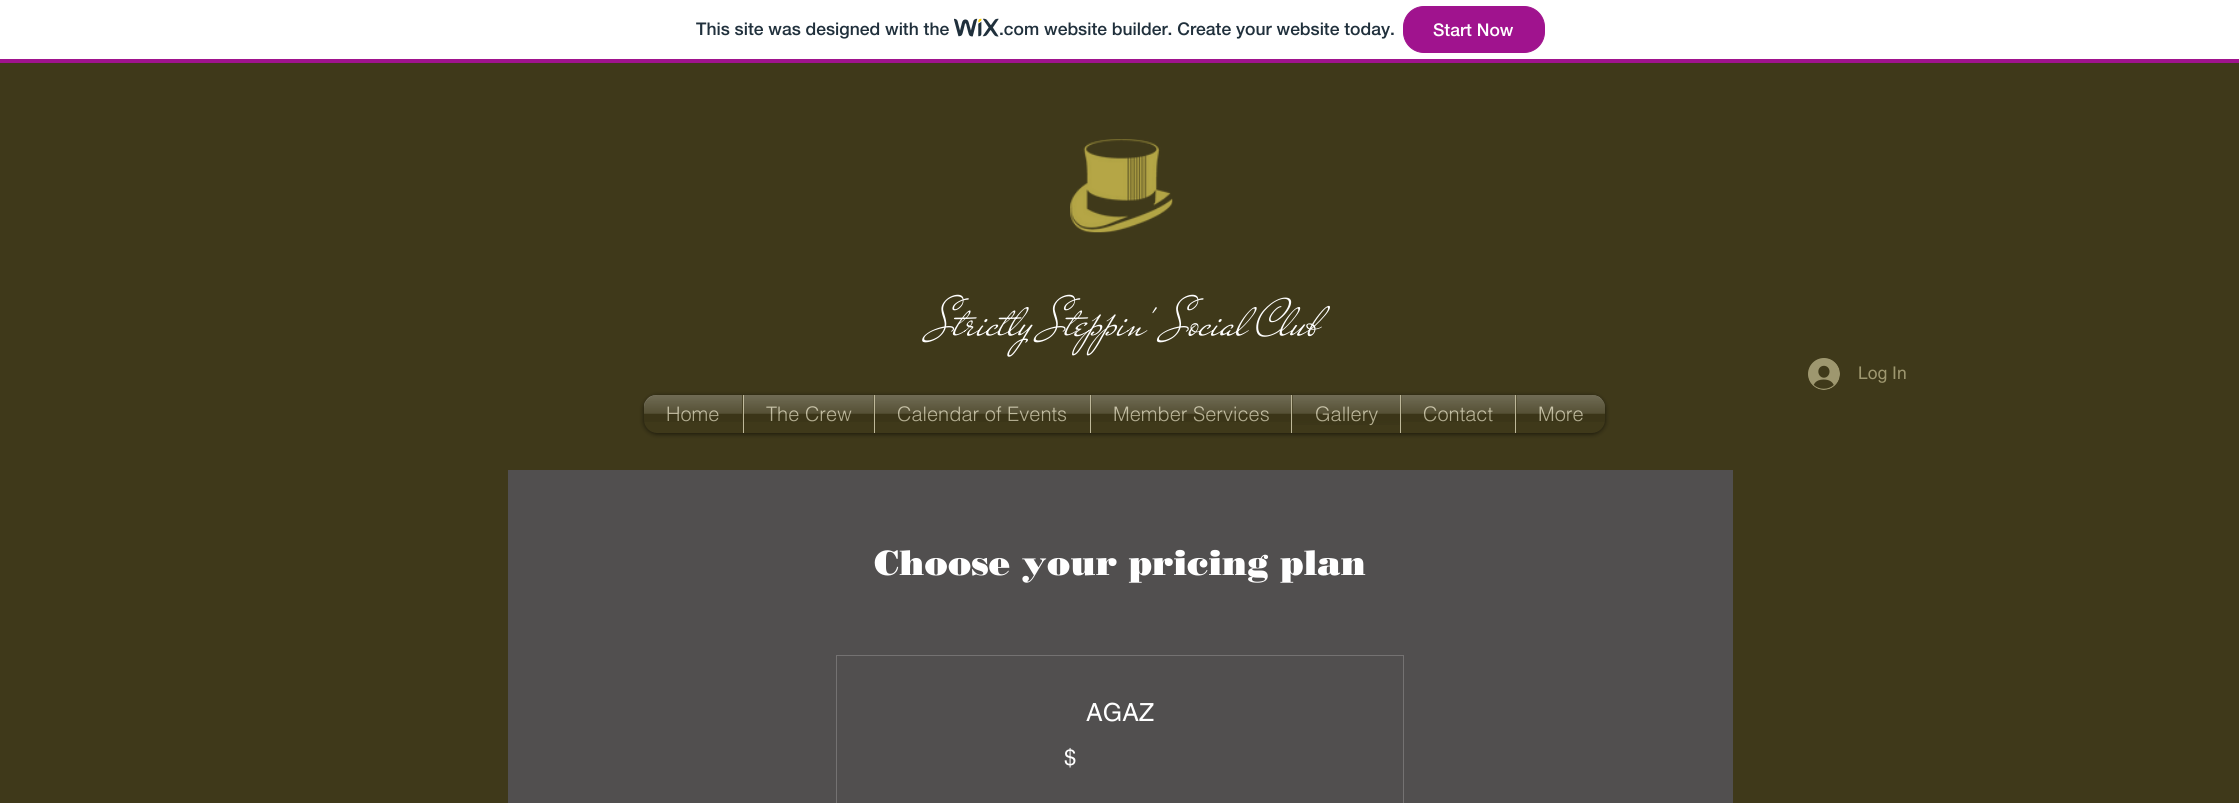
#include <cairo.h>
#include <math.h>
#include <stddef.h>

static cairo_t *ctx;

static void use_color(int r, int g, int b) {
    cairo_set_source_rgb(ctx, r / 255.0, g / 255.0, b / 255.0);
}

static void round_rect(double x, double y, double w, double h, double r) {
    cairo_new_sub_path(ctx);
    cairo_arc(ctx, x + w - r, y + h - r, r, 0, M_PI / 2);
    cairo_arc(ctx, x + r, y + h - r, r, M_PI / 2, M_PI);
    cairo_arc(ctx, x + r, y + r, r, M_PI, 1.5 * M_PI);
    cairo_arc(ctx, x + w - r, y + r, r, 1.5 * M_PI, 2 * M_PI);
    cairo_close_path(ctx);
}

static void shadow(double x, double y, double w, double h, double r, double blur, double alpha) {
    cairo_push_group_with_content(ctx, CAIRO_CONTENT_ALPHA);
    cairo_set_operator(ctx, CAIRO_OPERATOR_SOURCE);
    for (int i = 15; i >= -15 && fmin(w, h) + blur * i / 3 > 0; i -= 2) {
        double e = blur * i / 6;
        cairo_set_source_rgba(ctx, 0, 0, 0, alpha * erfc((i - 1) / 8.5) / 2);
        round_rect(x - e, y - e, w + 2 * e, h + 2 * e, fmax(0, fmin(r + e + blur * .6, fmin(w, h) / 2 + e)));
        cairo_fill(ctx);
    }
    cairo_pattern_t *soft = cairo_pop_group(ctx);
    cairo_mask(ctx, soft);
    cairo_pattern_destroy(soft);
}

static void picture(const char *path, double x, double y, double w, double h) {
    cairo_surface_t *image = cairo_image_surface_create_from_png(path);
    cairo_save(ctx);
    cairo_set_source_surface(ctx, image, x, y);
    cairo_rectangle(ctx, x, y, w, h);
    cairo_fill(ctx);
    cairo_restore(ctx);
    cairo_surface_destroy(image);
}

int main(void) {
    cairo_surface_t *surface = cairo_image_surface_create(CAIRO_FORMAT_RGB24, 2239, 803);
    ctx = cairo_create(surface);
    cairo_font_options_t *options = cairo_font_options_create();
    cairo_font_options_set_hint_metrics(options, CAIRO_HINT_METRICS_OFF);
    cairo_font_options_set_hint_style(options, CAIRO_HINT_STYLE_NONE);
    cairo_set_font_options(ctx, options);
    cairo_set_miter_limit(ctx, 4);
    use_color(255, 255, 255);
    cairo_paint(ctx);
    use_color(160, 19, 142);
    cairo_rectangle(ctx, 0, 59, 2239, 4);
    cairo_fill(ctx);
    cairo_select_font_face(ctx, "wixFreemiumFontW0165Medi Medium", CAIRO_FONT_SLANT_NORMAL, CAIRO_FONT_WEIGHT_NORMAL);
    cairo_set_font_size(ctx, 17.5);
    use_color(32, 48, 60);
    cairo_move_to(ctx, 696, 35);
    cairo_show_text(ctx, "This site was designed with the");
    picture("img1.png", 954, 18, 45, 19);
    cairo_move_to(ctx, 999, 35);
    cairo_show_text(ctx, ".com website builder. Create your website today.");
    use_color(160, 19, 142);
    round_rect(1403.5, 6.5, 141, 46, 20.5);
    cairo_fill_preserve(ctx);
    cairo_set_line_width(ctx, 1);
    cairo_stroke(ctx);
    use_color(255, 255, 255);
    cairo_move_to(ctx, 1433, 36);
    cairo_show_text(ctx, "Start Now");
    use_color(63, 57, 26);
    cairo_rectangle(ctx, 0, 63, 2239, 740);
    cairo_fill(ctx);
    picture("img2.png", 1070, 139, 103, 94);
    cairo_select_font_face(ctx, "Mr De Haviland", CAIRO_FONT_SLANT_NORMAL, CAIRO_FONT_WEIGHT_NORMAL);
    cairo_set_font_size(ctx, 52.5);
    use_color(255, 255, 255);
    cairo_move_to(ctx, 930, 335);
    cairo_show_text(ctx, "Strictly Steppin' Social Club");
    picture("img3.png", 1808, 358, 32, 32);
    cairo_select_font_face(ctx, "helvetica", CAIRO_FONT_SLANT_NORMAL, CAIRO_FONT_WEIGHT_NORMAL);
    cairo_set_font_size(ctx, 17.5);
    use_color(158, 151, 111);
    cairo_move_to(ctx, 1858, 379);
    cairo_show_text(ctx, "Log In");
    use_color(0, 0, 0);
    shadow(644, 396, 961, 38, 13, 2.5, 0.6);
    picture("img4.png", 644, 395, 961, 13);
    use_color(63, 57, 26);
    cairo_new_path(ctx);
    cairo_move_to(ctx, 657, 395);
    cairo_line_to(ctx, 743, 395);
    cairo_line_to(ctx, 743, 433);
    cairo_line_to(ctx, 657, 433);
    cairo_curve_to(ctx, 650, 433, 644, 427, 644, 420);
    cairo_line_to(ctx, 644, 408);
    cairo_curve_to(ctx, 644, 401, 650, 395, 657, 395);
    cairo_close_path(ctx);
    cairo_fill(ctx);
    cairo_select_font_face(ctx, "helvetica Light", CAIRO_FONT_SLANT_NORMAL, CAIRO_FONT_WEIGHT_NORMAL);
    cairo_set_font_size(ctx, 20);
    use_color(190, 184, 153);
    cairo_move_to(ctx, 666, 421);
    cairo_show_text(ctx, "Home");
    picture("img5.png", 644, 395, 99, 27);
    use_color(63, 57, 26);
    cairo_rectangle(ctx, 744, 395, 130, 38);
    cairo_fill(ctx);
    use_color(190, 184, 153);
    cairo_rectangle(ctx, 743, 395, 1, 38);
    cairo_fill(ctx);
    cairo_move_to(ctx, 766, 421);
    cairo_show_text(ctx, "The Crew");
    picture("img6.png", 743, 395, 131, 27);
    use_color(63, 57, 26);
    cairo_rectangle(ctx, 875, 395, 215, 38);
    cairo_fill(ctx);
    use_color(190, 184, 153);
    cairo_rectangle(ctx, 874, 395, 1, 38);
    cairo_fill(ctx);
    cairo_move_to(ctx, 897, 421);
    cairo_show_text(ctx, "Calendar of Events");
    picture("img7.png", 875, 395, 215, 27);
    use_color(63, 57, 26);
    cairo_rectangle(ctx, 1091, 395, 200, 38);
    cairo_fill(ctx);
    use_color(190, 184, 153);
    cairo_rectangle(ctx, 1090, 395, 1, 38);
    cairo_fill(ctx);
    cairo_move_to(ctx, 1113, 421);
    cairo_show_text(ctx, "Member Services");
    picture("img8.png", 1091, 395, 200, 27);
    use_color(63, 57, 26);
    cairo_rectangle(ctx, 1292, 395, 108, 38);
    cairo_fill(ctx);
    use_color(190, 184, 153);
    cairo_rectangle(ctx, 1291, 395, 1, 38);
    cairo_fill(ctx);
    cairo_move_to(ctx, 1315, 421);
    cairo_show_text(ctx, "Gallery");
    picture("img9.png", 1292, 395, 108, 30);
    use_color(63, 57, 26);
    cairo_rectangle(ctx, 1401, 395, 114, 38);
    cairo_fill(ctx);
    use_color(190, 184, 153);
    cairo_rectangle(ctx, 1400, 395, 1, 38);
    cairo_fill(ctx);
    cairo_move_to(ctx, 1423, 421);
    cairo_show_text(ctx, "Contact");
    picture("img10.png", 1401, 395, 114, 27);
    use_color(63, 57, 26);
    cairo_new_path(ctx);
    cairo_move_to(ctx, 1515, 395);
    cairo_line_to(ctx, 1592, 395);
    cairo_curve_to(ctx, 1599, 395, 1605, 401, 1605, 408);
    cairo_line_to(ctx, 1605, 420);
    cairo_curve_to(ctx, 1605, 427, 1599, 433, 1592, 433);
    cairo_line_to(ctx, 1515, 433);
    cairo_close_path(ctx);
    cairo_fill(ctx);
    use_color(190, 184, 153);
    cairo_rectangle(ctx, 1515, 395, 1, 38);
    cairo_fill(ctx);
    cairo_move_to(ctx, 1538, 421);
    cairo_show_text(ctx, "More");
    picture("img11.png", 1516, 395, 89, 27);
    use_color(81, 79, 79);
    cairo_rectangle(ctx, 508, 470, 1225, 333);
    cairo_fill(ctx);
    cairo_select_font_face(ctx, "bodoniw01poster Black", CAIRO_FONT_SLANT_NORMAL, CAIRO_FONT_WEIGHT_NORMAL);
    cairo_set_font_size(ctx, 35);
    use_color(255, 255, 255);
    cairo_move_to(ctx, 874, 575);
    cairo_show_text(ctx, "Choose your pricing plan");
    cairo_rectangle(ctx, 836.5, 655.5, 567, 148);
    use_color(116, 114, 114);
    cairo_stroke(ctx);
    cairo_select_font_face(ctx, "helvetica", CAIRO_FONT_SLANT_NORMAL, CAIRO_FONT_WEIGHT_NORMAL);
    cairo_set_font_size(ctx, 25);
    use_color(255, 255, 255);
    cairo_move_to(ctx, 1086, 721);
    cairo_show_text(ctx, "AGAZ");
    cairo_set_font_size(ctx, 22);
    cairo_move_to(ctx, 1064, 765);
    cairo_show_text(ctx, "$");
    cairo_surface_write_to_png(surface, "result.png");
    cairo_font_options_destroy(options);
    cairo_destroy(ctx);
    cairo_surface_destroy(surface);
    return 0;
}
